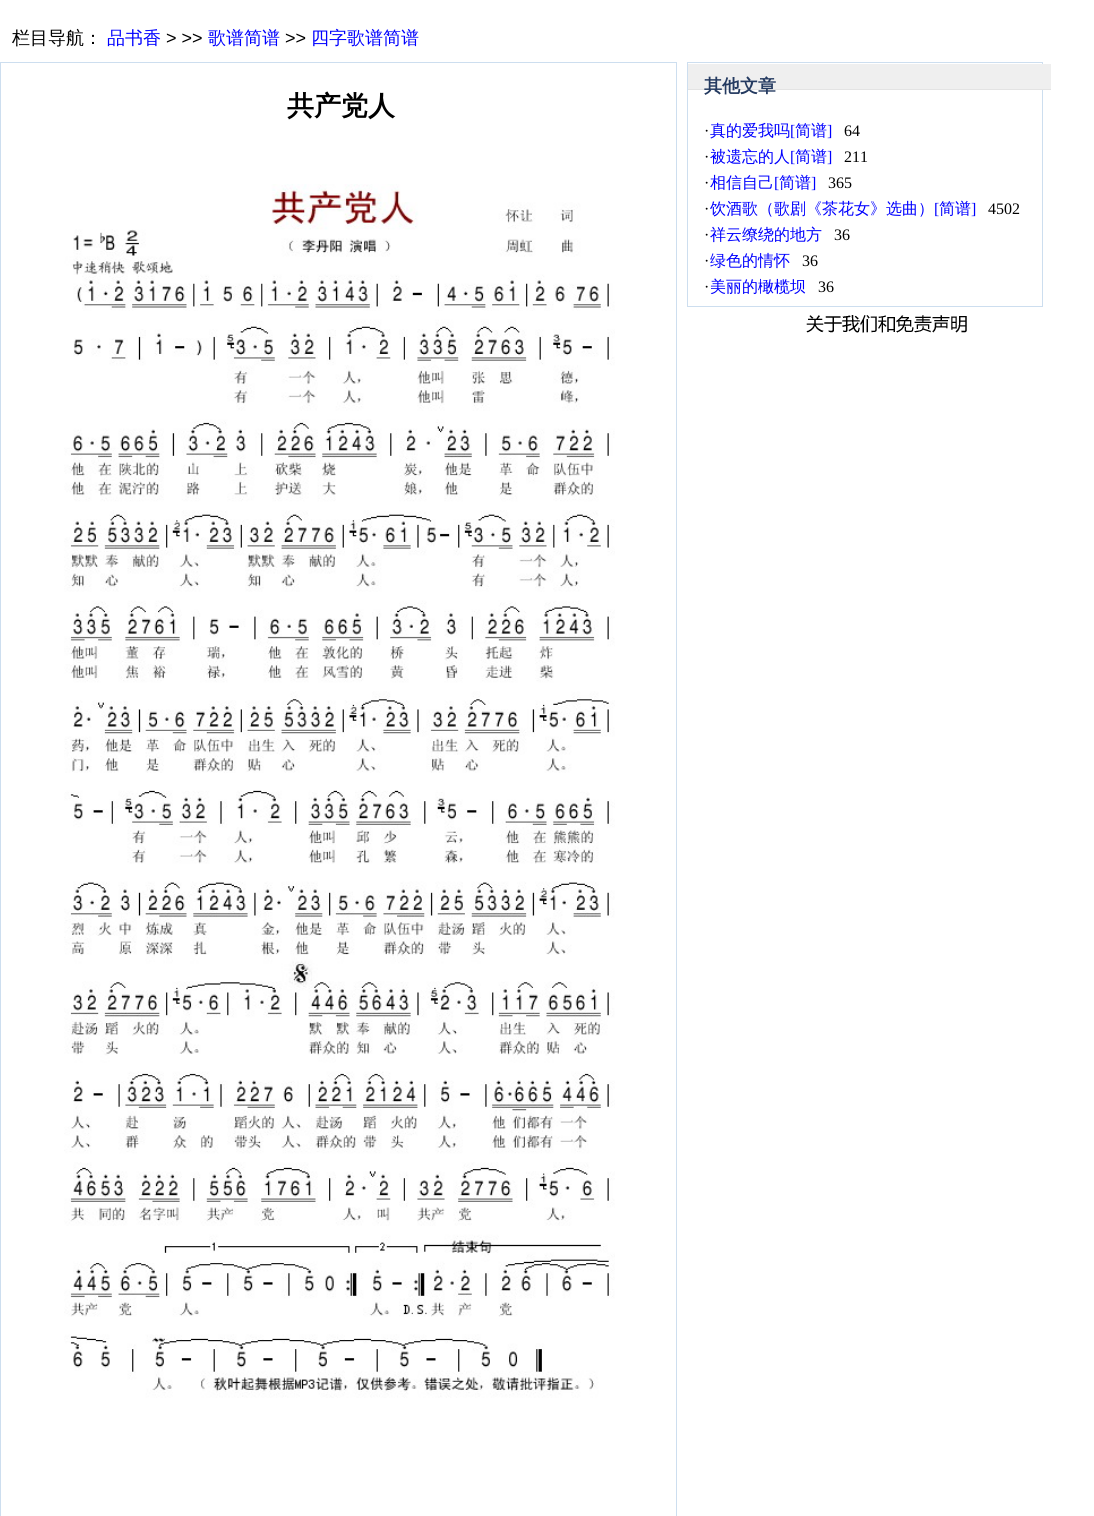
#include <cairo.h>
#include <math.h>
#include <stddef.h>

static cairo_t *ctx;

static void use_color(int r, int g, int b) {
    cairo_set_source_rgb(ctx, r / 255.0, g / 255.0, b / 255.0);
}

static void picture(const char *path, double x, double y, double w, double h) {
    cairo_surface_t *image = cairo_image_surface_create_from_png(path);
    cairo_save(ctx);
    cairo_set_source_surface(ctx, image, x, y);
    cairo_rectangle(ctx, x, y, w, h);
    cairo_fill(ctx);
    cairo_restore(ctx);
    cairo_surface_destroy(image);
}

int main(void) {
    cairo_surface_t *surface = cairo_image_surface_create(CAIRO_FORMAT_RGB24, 1094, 1516);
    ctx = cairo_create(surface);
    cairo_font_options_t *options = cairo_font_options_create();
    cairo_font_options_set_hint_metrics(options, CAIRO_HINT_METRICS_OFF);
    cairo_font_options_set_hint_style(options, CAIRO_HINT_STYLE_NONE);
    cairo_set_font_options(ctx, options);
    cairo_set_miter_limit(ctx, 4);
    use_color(255, 255, 255);
    cairo_paint(ctx);
    cairo_select_font_face(ctx, "WenQuanYi Zen Hei Medium", CAIRO_FONT_SLANT_NORMAL, CAIRO_FONT_WEIGHT_NORMAL);
    cairo_set_font_size(ctx, 18);
    use_color(0, 0, 0);
    cairo_move_to(ctx, 12, 44);
    cairo_show_text(ctx, "栏目导航：");
    use_color(0, 0, 255);
    cairo_move_to(ctx, 107, 44);
    cairo_show_text(ctx, "品书香");
    cairo_select_font_face(ctx, "Liberation Sans", CAIRO_FONT_SLANT_NORMAL, CAIRO_FONT_WEIGHT_NORMAL);
    use_color(0, 0, 0);
    cairo_move_to(ctx, 166, 44);
    cairo_show_text(ctx, "> >>");
    cairo_select_font_face(ctx, "WenQuanYi Zen Hei Medium", CAIRO_FONT_SLANT_NORMAL, CAIRO_FONT_WEIGHT_NORMAL);
    use_color(0, 0, 255);
    cairo_move_to(ctx, 208, 44);
    cairo_show_text(ctx, "歌谱简谱");
    cairo_select_font_face(ctx, "Liberation Sans", CAIRO_FONT_SLANT_NORMAL, CAIRO_FONT_WEIGHT_NORMAL);
    use_color(0, 0, 0);
    cairo_move_to(ctx, 285, 44);
    cairo_show_text(ctx, ">>");
    cairo_select_font_face(ctx, "WenQuanYi Zen Hei Medium", CAIRO_FONT_SLANT_NORMAL, CAIRO_FONT_WEIGHT_NORMAL);
    use_color(0, 0, 255);
    cairo_move_to(ctx, 311, 44);
    cairo_show_text(ctx, "四字歌谱简谱");
    cairo_rectangle(ctx, 0.5, 62.5, 676, 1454);
    use_color(205, 222, 239);
    cairo_set_line_width(ctx, 1);
    cairo_stroke(ctx);
    cairo_select_font_face(ctx, "WenQuanYi Zen Hei", CAIRO_FONT_SLANT_NORMAL, CAIRO_FONT_WEIGHT_BOLD);
    cairo_set_font_size(ctx, 27);
    use_color(0, 0, 0);
    cairo_move_to(ctx, 287, 115);
    cairo_show_text(ctx, "共产党人");
    picture("img1.png", 64, 184, 551, 1214);
    cairo_rectangle(ctx, 687.5, 62.5, 355, 244);
    use_color(205, 222, 239);
    cairo_stroke(ctx);
    use_color(239, 239, 239);
    cairo_rectangle(ctx, 688, 64, 363, 25);
    cairo_fill(ctx);
    use_color(227, 227, 227);
    cairo_rectangle(ctx, 688, 89, 363, 1);
    cairo_fill(ctx);
    cairo_set_font_size(ctx, 18);
    use_color(36, 58, 96);
    cairo_move_to(ctx, 704, 92);
    cairo_show_text(ctx, "其他文章");
    cairo_select_font_face(ctx, "Liberation Serif", CAIRO_FONT_SLANT_NORMAL, CAIRO_FONT_WEIGHT_NORMAL);
    cairo_set_font_size(ctx, 16);
    use_color(0, 0, 0);
    cairo_move_to(ctx, 704, 136);
    cairo_show_text(ctx, "·");
    cairo_select_font_face(ctx, "WenQuanYi Zen Hei Medium", CAIRO_FONT_SLANT_NORMAL, CAIRO_FONT_WEIGHT_NORMAL);
    use_color(0, 0, 255);
    cairo_move_to(ctx, 710, 136);
    cairo_show_text(ctx, "真的爱我吗");
    cairo_select_font_face(ctx, "Liberation Serif", CAIRO_FONT_SLANT_NORMAL, CAIRO_FONT_WEIGHT_NORMAL);
    cairo_move_to(ctx, 790, 136);
    cairo_show_text(ctx, "[");
    cairo_select_font_face(ctx, "WenQuanYi Zen Hei Medium", CAIRO_FONT_SLANT_NORMAL, CAIRO_FONT_WEIGHT_NORMAL);
    cairo_move_to(ctx, 795, 136);
    cairo_show_text(ctx, "简谱");
    cairo_select_font_face(ctx, "Liberation Serif", CAIRO_FONT_SLANT_NORMAL, CAIRO_FONT_WEIGHT_NORMAL);
    cairo_move_to(ctx, 827, 136);
    cairo_show_text(ctx, "]");
    use_color(0, 0, 0);
    cairo_move_to(ctx, 844, 136);
    cairo_show_text(ctx, "64");
    cairo_move_to(ctx, 704, 162);
    cairo_show_text(ctx, "·");
    cairo_select_font_face(ctx, "WenQuanYi Zen Hei Medium", CAIRO_FONT_SLANT_NORMAL, CAIRO_FONT_WEIGHT_NORMAL);
    use_color(0, 0, 255);
    cairo_move_to(ctx, 710, 162);
    cairo_show_text(ctx, "被遗忘的人");
    cairo_select_font_face(ctx, "Liberation Serif", CAIRO_FONT_SLANT_NORMAL, CAIRO_FONT_WEIGHT_NORMAL);
    cairo_move_to(ctx, 790, 162);
    cairo_show_text(ctx, "[");
    cairo_select_font_face(ctx, "WenQuanYi Zen Hei Medium", CAIRO_FONT_SLANT_NORMAL, CAIRO_FONT_WEIGHT_NORMAL);
    cairo_move_to(ctx, 795, 162);
    cairo_show_text(ctx, "简谱");
    cairo_select_font_face(ctx, "Liberation Serif", CAIRO_FONT_SLANT_NORMAL, CAIRO_FONT_WEIGHT_NORMAL);
    cairo_move_to(ctx, 827, 162);
    cairo_show_text(ctx, "]");
    use_color(0, 0, 0);
    cairo_move_to(ctx, 844, 162);
    cairo_show_text(ctx, "211");
    cairo_move_to(ctx, 704, 188);
    cairo_show_text(ctx, "·");
    cairo_select_font_face(ctx, "WenQuanYi Zen Hei Medium", CAIRO_FONT_SLANT_NORMAL, CAIRO_FONT_WEIGHT_NORMAL);
    use_color(0, 0, 255);
    cairo_move_to(ctx, 710, 188);
    cairo_show_text(ctx, "相信自己");
    cairo_select_font_face(ctx, "Liberation Serif", CAIRO_FONT_SLANT_NORMAL, CAIRO_FONT_WEIGHT_NORMAL);
    cairo_move_to(ctx, 774, 188);
    cairo_show_text(ctx, "[");
    cairo_select_font_face(ctx, "WenQuanYi Zen Hei Medium", CAIRO_FONT_SLANT_NORMAL, CAIRO_FONT_WEIGHT_NORMAL);
    cairo_move_to(ctx, 779, 188);
    cairo_show_text(ctx, "简谱");
    cairo_select_font_face(ctx, "Liberation Serif", CAIRO_FONT_SLANT_NORMAL, CAIRO_FONT_WEIGHT_NORMAL);
    cairo_move_to(ctx, 811, 188);
    cairo_show_text(ctx, "]");
    use_color(0, 0, 0);
    cairo_move_to(ctx, 828, 188);
    cairo_show_text(ctx, "365");
    cairo_move_to(ctx, 704, 214);
    cairo_show_text(ctx, "·");
    cairo_select_font_face(ctx, "WenQuanYi Zen Hei Medium", CAIRO_FONT_SLANT_NORMAL, CAIRO_FONT_WEIGHT_NORMAL);
    use_color(0, 0, 255);
    cairo_move_to(ctx, 710, 214);
    cairo_show_text(ctx, "饮酒歌（歌剧《茶花女》选曲）");
    cairo_select_font_face(ctx, "Liberation Serif", CAIRO_FONT_SLANT_NORMAL, CAIRO_FONT_WEIGHT_NORMAL);
    cairo_move_to(ctx, 934, 214);
    cairo_show_text(ctx, "[");
    cairo_select_font_face(ctx, "WenQuanYi Zen Hei Medium", CAIRO_FONT_SLANT_NORMAL, CAIRO_FONT_WEIGHT_NORMAL);
    cairo_move_to(ctx, 939, 214);
    cairo_show_text(ctx, "简谱");
    cairo_select_font_face(ctx, "Liberation Serif", CAIRO_FONT_SLANT_NORMAL, CAIRO_FONT_WEIGHT_NORMAL);
    cairo_move_to(ctx, 971, 214);
    cairo_show_text(ctx, "]");
    use_color(0, 0, 0);
    cairo_move_to(ctx, 988, 214);
    cairo_show_text(ctx, "4502");
    cairo_move_to(ctx, 704, 240);
    cairo_show_text(ctx, "·");
    cairo_select_font_face(ctx, "WenQuanYi Zen Hei Medium", CAIRO_FONT_SLANT_NORMAL, CAIRO_FONT_WEIGHT_NORMAL);
    use_color(0, 0, 255);
    cairo_move_to(ctx, 710, 240);
    cairo_show_text(ctx, "祥云缭绕的地方");
    cairo_select_font_face(ctx, "Liberation Serif", CAIRO_FONT_SLANT_NORMAL, CAIRO_FONT_WEIGHT_NORMAL);
    use_color(0, 0, 0);
    cairo_move_to(ctx, 834, 240);
    cairo_show_text(ctx, "36");
    cairo_move_to(ctx, 704, 266);
    cairo_show_text(ctx, "·");
    cairo_select_font_face(ctx, "WenQuanYi Zen Hei Medium", CAIRO_FONT_SLANT_NORMAL, CAIRO_FONT_WEIGHT_NORMAL);
    use_color(0, 0, 255);
    cairo_move_to(ctx, 710, 266);
    cairo_show_text(ctx, "绿色的情怀");
    cairo_select_font_face(ctx, "Liberation Serif", CAIRO_FONT_SLANT_NORMAL, CAIRO_FONT_WEIGHT_NORMAL);
    use_color(0, 0, 0);
    cairo_move_to(ctx, 802, 266);
    cairo_show_text(ctx, "36");
    cairo_move_to(ctx, 704, 292);
    cairo_show_text(ctx, "·");
    cairo_select_font_face(ctx, "WenQuanYi Zen Hei Medium", CAIRO_FONT_SLANT_NORMAL, CAIRO_FONT_WEIGHT_NORMAL);
    use_color(0, 0, 255);
    cairo_move_to(ctx, 710, 292);
    cairo_show_text(ctx, "美丽的橄榄坝");
    cairo_select_font_face(ctx, "Liberation Serif", CAIRO_FONT_SLANT_NORMAL, CAIRO_FONT_WEIGHT_NORMAL);
    use_color(0, 0, 0);
    cairo_move_to(ctx, 818, 292);
    cairo_show_text(ctx, "36");
    picture("img2.png", 806, 315, 161, 18);
    cairo_surface_write_to_png(surface, "result.png");
    cairo_font_options_destroy(options);
    cairo_destroy(ctx);
    cairo_surface_destroy(surface);
    return 0;
}
